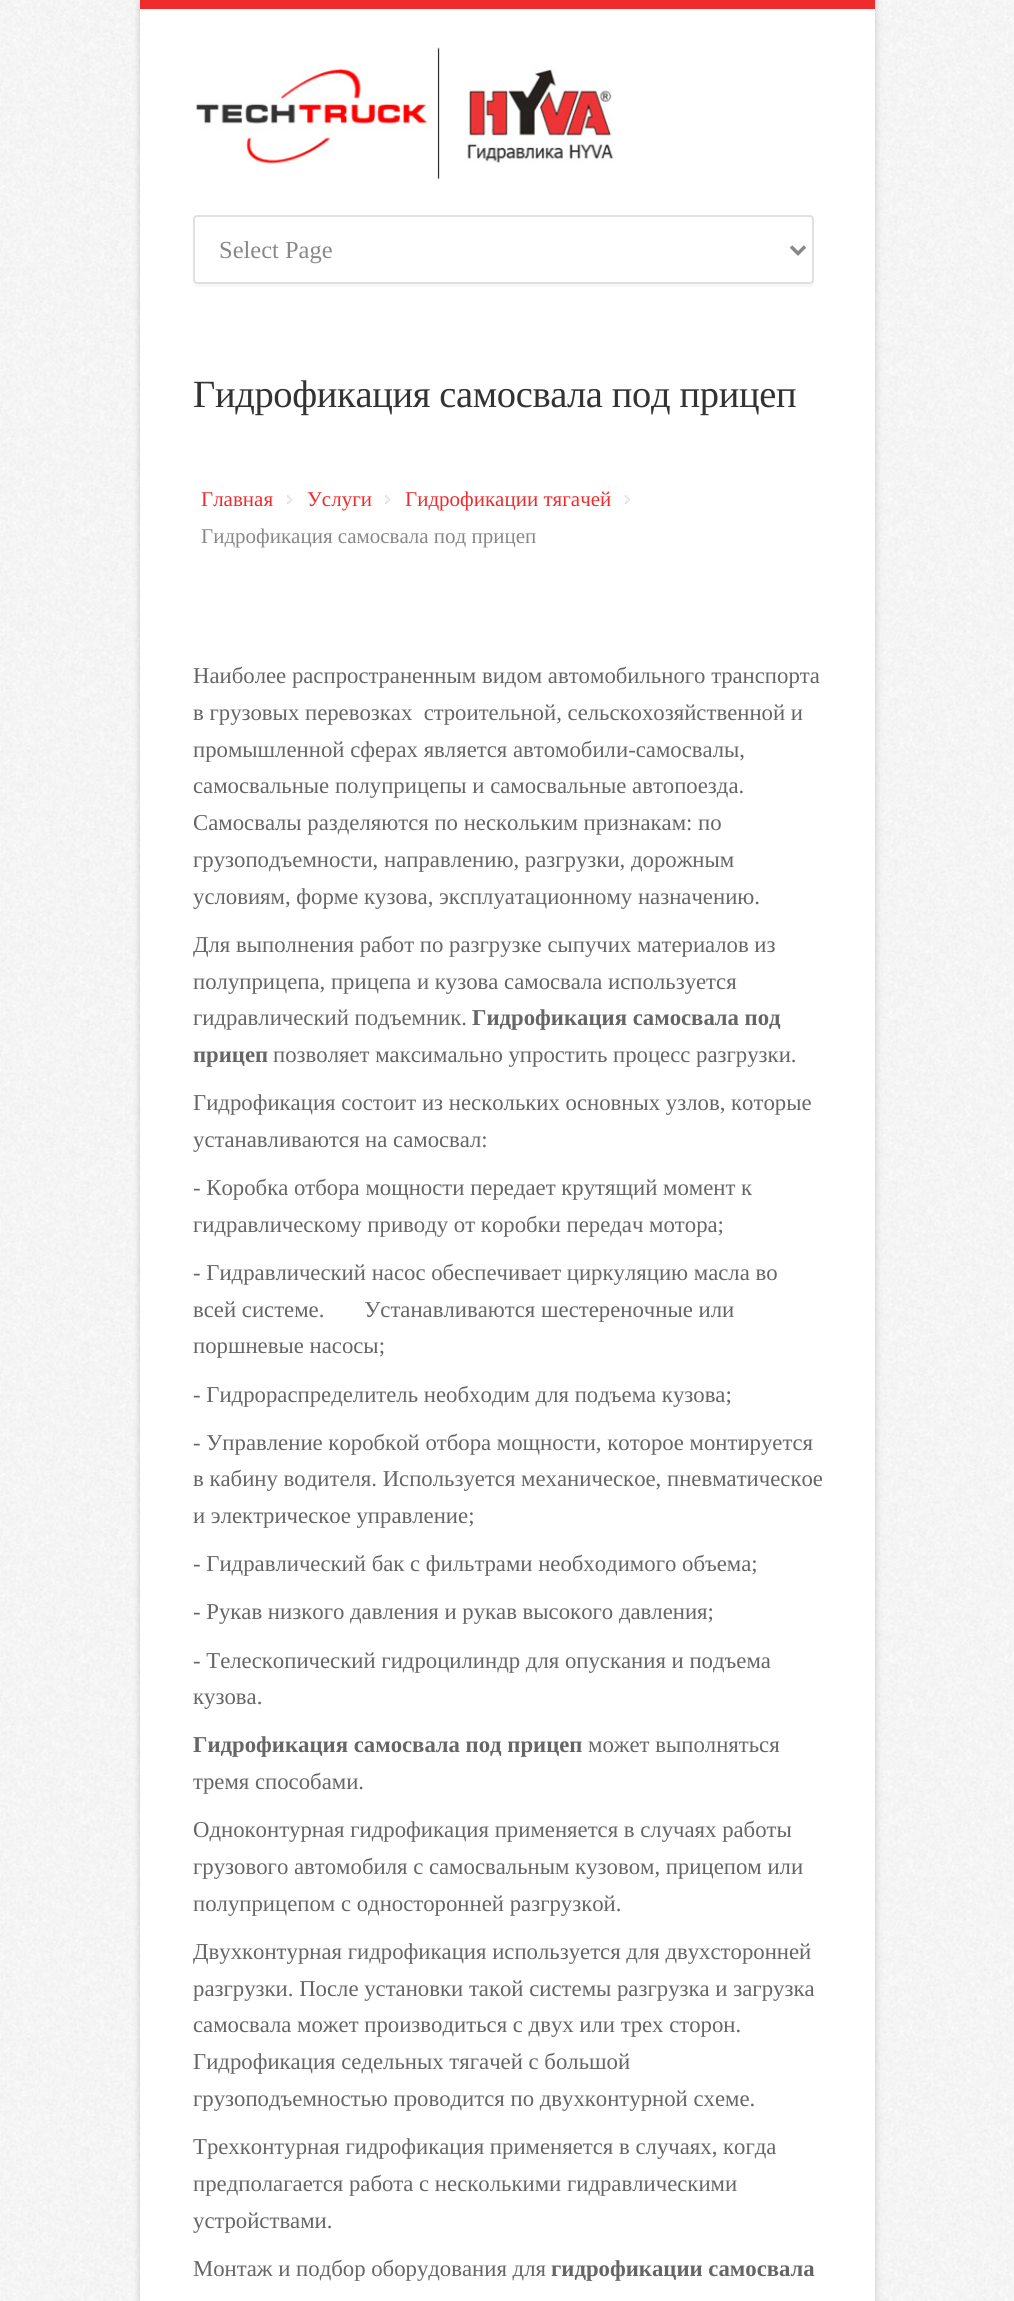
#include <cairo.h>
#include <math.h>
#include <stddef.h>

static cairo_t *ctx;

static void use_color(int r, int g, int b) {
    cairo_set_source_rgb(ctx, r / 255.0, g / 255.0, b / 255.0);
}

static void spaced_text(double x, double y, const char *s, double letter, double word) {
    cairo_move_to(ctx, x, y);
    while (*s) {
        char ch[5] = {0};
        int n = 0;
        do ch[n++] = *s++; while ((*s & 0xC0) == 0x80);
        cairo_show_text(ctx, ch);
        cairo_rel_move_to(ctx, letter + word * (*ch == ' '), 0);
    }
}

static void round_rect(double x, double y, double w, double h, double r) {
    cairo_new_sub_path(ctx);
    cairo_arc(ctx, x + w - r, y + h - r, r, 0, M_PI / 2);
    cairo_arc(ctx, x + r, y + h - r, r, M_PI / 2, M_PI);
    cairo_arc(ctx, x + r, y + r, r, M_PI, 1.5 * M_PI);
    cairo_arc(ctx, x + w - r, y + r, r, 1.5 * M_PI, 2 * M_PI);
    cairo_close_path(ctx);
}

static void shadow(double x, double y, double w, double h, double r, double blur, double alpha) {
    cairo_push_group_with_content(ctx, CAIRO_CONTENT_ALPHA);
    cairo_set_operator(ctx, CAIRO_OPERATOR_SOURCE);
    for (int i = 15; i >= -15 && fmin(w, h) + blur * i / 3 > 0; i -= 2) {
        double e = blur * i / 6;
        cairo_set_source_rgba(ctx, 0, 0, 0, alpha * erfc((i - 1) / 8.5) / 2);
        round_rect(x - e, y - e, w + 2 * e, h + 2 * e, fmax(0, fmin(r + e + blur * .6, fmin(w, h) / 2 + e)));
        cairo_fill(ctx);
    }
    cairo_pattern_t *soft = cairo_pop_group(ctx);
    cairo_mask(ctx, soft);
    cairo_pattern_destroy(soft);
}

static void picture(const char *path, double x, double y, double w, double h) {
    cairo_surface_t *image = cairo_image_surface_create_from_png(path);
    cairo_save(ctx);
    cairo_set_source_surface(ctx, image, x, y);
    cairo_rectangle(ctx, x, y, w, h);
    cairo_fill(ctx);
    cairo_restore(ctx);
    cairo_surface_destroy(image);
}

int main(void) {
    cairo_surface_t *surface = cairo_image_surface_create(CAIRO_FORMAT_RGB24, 1014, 2301);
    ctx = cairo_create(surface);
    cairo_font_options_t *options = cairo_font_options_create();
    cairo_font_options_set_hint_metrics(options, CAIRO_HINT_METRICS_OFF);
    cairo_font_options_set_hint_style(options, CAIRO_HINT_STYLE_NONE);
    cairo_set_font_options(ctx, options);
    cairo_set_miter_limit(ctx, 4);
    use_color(255, 255, 255);
    cairo_paint(ctx);
    picture("img1.png", 0, 0, 1014, 2301);
    use_color(0, 0, 0);
    shadow(140, 0, 735, 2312, 0, 3.5, 0.2);
    use_color(255, 255, 255);
    cairo_rectangle(ctx, 140, 9, 735, 2292);
    cairo_fill(ctx);
    use_color(239, 43, 45);
    cairo_rectangle(ctx, 140, 0, 735, 9);
    cairo_fill(ctx);
    picture("img2.png", 196, 47, 418, 132);
    use_color(247, 247, 247);
    cairo_new_path(ctx);
    cairo_move_to(ctx, 193, 282);
    cairo_line_to(ctx, 193, 283);
    cairo_curve_to(ctx, 193, 285, 195, 287, 197, 287);
    cairo_line_to(ctx, 810, 287);
    cairo_curve_to(ctx, 812, 287, 814, 285, 814, 283);
    cairo_line_to(ctx, 814, 222);
    cairo_line_to(ctx, 814, 280);
    cairo_curve_to(ctx, 814, 282, 812, 284, 810, 284);
    cairo_line_to(ctx, 196, 284);
    cairo_curve_to(ctx, 195, 284, 194, 283, 193, 282);
    cairo_close_path(ctx);
    cairo_fill(ctx);
    round_rect(194, 216, 619, 67, 3);
    use_color(224, 224, 224);
    cairo_stroke(ctx);
    cairo_new_path(ctx);
    cairo_move_to(ctx, 791, 246.5);
    cairo_line_to(ctx, 798, 253.5);
    cairo_line_to(ctx, 805, 246.5);
    use_color(136, 136, 136);
    cairo_set_line_width(ctx, 3.5);
    cairo_stroke(ctx);
    cairo_select_font_face(ctx, "Liberation Serif", CAIRO_FONT_SLANT_NORMAL, CAIRO_FONT_WEIGHT_NORMAL);
    cairo_set_font_size(ctx, 24.5);
    cairo_move_to(ctx, 219, 258);
    cairo_show_text(ctx, "Select Page");
    cairo_set_font_size(ctx, 38.5);
    use_color(51, 51, 51);
    spaced_text(193, 407, "Гидрофикация самосвала под прицеп", -0.35, 0);
    picture("img3.png", 287, 495, 6, 9);
    cairo_set_font_size(ctx, 21);
    use_color(239, 43, 45);
    cairo_move_to(ctx, 201, 506);
    cairo_show_text(ctx, "Главная");
    picture("img4.png", 385, 495, 6, 9);
    cairo_move_to(ctx, 307, 506);
    cairo_show_text(ctx, "Услуги");
    picture("img5.png", 624, 495, 6, 9);
    cairo_move_to(ctx, 405, 506);
    cairo_show_text(ctx, "Гидрофикации тягачей");
    use_color(136, 136, 136);
    cairo_move_to(ctx, 201, 543);
    cairo_show_text(ctx, "Гидрофикация самосвала под прицеп");
    cairo_set_font_size(ctx, 22.75);
    use_color(102, 102, 102);
    cairo_move_to(ctx, 193, 683);
    cairo_show_text(ctx, "Наиболее распространенным видом автомобильного транспорта");
    cairo_move_to(ctx, 193, 720);
    cairo_show_text(ctx, "в грузовых перевозках  строительной, сельскохозяйственной и");
    cairo_move_to(ctx, 193, 757);
    cairo_show_text(ctx, "промышленной сферах является автомобили-самосвалы,");
    cairo_move_to(ctx, 193, 793);
    cairo_show_text(ctx, "самосвальные полуприцепы и самосвальные автопоезда.");
    cairo_move_to(ctx, 193, 830);
    cairo_show_text(ctx, "Самосвалы разделяются по нескольким признакам: по");
    cairo_move_to(ctx, 193, 867);
    cairo_show_text(ctx, "грузоподъемности, направлению, разгрузки, дорожным");
    cairo_move_to(ctx, 193, 904);
    cairo_show_text(ctx, "условиям, форме кузова, эксплуатационному назначению.");
    cairo_move_to(ctx, 193, 952);
    cairo_show_text(ctx, "Для выполнения работ по разгрузке сыпучих материалов из");
    cairo_move_to(ctx, 193, 989);
    cairo_show_text(ctx, "полуприцепа, прицепа и кузова самосвала используется");
    cairo_move_to(ctx, 193, 1025);
    cairo_show_text(ctx, "гидравлический подъемник.");
    cairo_select_font_face(ctx, "Liberation Serif", CAIRO_FONT_SLANT_NORMAL, CAIRO_FONT_WEIGHT_BOLD);
    cairo_move_to(ctx, 472, 1025);
    cairo_show_text(ctx, "Гидрофикация самосвала под");
    cairo_move_to(ctx, 193, 1062);
    cairo_show_text(ctx, "прицеп");
    cairo_select_font_face(ctx, "Liberation Serif", CAIRO_FONT_SLANT_NORMAL, CAIRO_FONT_WEIGHT_NORMAL);
    cairo_move_to(ctx, 273, 1062);
    cairo_show_text(ctx, "позволяет максимально упростить процесс разгрузки.");
    cairo_move_to(ctx, 193, 1110);
    cairo_show_text(ctx, "Гидрофикация состоит из нескольких основных узлов, которые");
    cairo_move_to(ctx, 193, 1147);
    cairo_show_text(ctx, "устанавливаются на самосвал:");
    cairo_move_to(ctx, 193, 1195);
    cairo_show_text(ctx, "- Коробка отбора мощности передает крутящий момент к");
    cairo_move_to(ctx, 193, 1232);
    cairo_show_text(ctx, "гидравлическому приводу от коробки передач мотора;");
    cairo_move_to(ctx, 193, 1280);
    cairo_show_text(ctx, "- Гидравлический насос обеспечивает циркуляцию масла во");
    cairo_move_to(ctx, 193, 1317);
    cairo_show_text(ctx, "всей системе.       Устанавливаются шестереночные или");
    cairo_move_to(ctx, 193, 1353);
    cairo_show_text(ctx, "поршневые насосы;");
    cairo_move_to(ctx, 193, 1402);
    cairo_show_text(ctx, "- Гидрораспределитель необходим для подъема кузова;");
    cairo_move_to(ctx, 193, 1450);
    cairo_show_text(ctx, "- Управление коробкой отбора мощности, которое монтируется");
    cairo_move_to(ctx, 193, 1486);
    cairo_show_text(ctx, "в кабину водителя. Используется механическое, пневматическое");
    cairo_move_to(ctx, 193, 1523);
    cairo_show_text(ctx, "и электрическое управление;");
    cairo_move_to(ctx, 193, 1571);
    cairo_show_text(ctx, "- Гидравлический бак с фильтрами необходимого объема;");
    cairo_move_to(ctx, 193, 1619);
    cairo_show_text(ctx, "- Рукав низкого давления и рукав высокого давления;");
    cairo_move_to(ctx, 193, 1668);
    cairo_show_text(ctx, "- Телескопический гидроцилиндр для опускания и подъема");
    cairo_move_to(ctx, 193, 1704);
    cairo_show_text(ctx, "кузова.");
    cairo_select_font_face(ctx, "Liberation Serif", CAIRO_FONT_SLANT_NORMAL, CAIRO_FONT_WEIGHT_BOLD);
    cairo_move_to(ctx, 193, 1752);
    cairo_show_text(ctx, "Гидрофикация самосвала под прицеп");
    cairo_select_font_face(ctx, "Liberation Serif", CAIRO_FONT_SLANT_NORMAL, CAIRO_FONT_WEIGHT_NORMAL);
    cairo_move_to(ctx, 588, 1752);
    cairo_show_text(ctx, "может выполняться");
    cairo_move_to(ctx, 193, 1789);
    cairo_show_text(ctx, "тремя способами.");
    cairo_move_to(ctx, 193, 1837);
    cairo_show_text(ctx, "Одноконтурная гидрофикация применяется в случаях работы");
    cairo_move_to(ctx, 193, 1874);
    cairo_show_text(ctx, "грузового автомобиля с самосвальным кузовом, прицепом или");
    cairo_move_to(ctx, 193, 1911);
    cairo_show_text(ctx, "полуприцепом с односторонней разгрузкой.");
    cairo_move_to(ctx, 193, 1959);
    cairo_show_text(ctx, "Двухконтурная гидрофикация используется для двухсторонней");
    cairo_move_to(ctx, 193, 1996);
    cairo_show_text(ctx, "разгрузки. После установки такой системы разгрузка и загрузка");
    cairo_move_to(ctx, 193, 2032);
    cairo_show_text(ctx, "самосвала может производиться с двух или трех сторон.");
    cairo_move_to(ctx, 193, 2069);
    cairo_show_text(ctx, "Гидрофикация седельных тягачей с большой");
    cairo_move_to(ctx, 193, 2106);
    cairo_show_text(ctx, "грузоподъемностью проводится по двухконтурной схеме.");
    cairo_move_to(ctx, 193, 2154);
    cairo_show_text(ctx, "Трехконтурная гидрофикация применяется в случаях, когда");
    cairo_move_to(ctx, 193, 2191);
    cairo_show_text(ctx, "предполагается работа с несколькими гидравлическими");
    cairo_move_to(ctx, 193, 2228);
    cairo_show_text(ctx, "устройствами.");
    cairo_move_to(ctx, 193, 2276);
    cairo_show_text(ctx, "Монтаж и подбор оборудования для");
    cairo_select_font_face(ctx, "Liberation Serif", CAIRO_FONT_SLANT_NORMAL, CAIRO_FONT_WEIGHT_BOLD);
    cairo_move_to(ctx, 551, 2276);
    cairo_show_text(ctx, "гидрофикации самосвала");
    cairo_surface_write_to_png(surface, "result.png");
    cairo_font_options_destroy(options);
    cairo_destroy(ctx);
    cairo_surface_destroy(surface);
    return 0;
}
